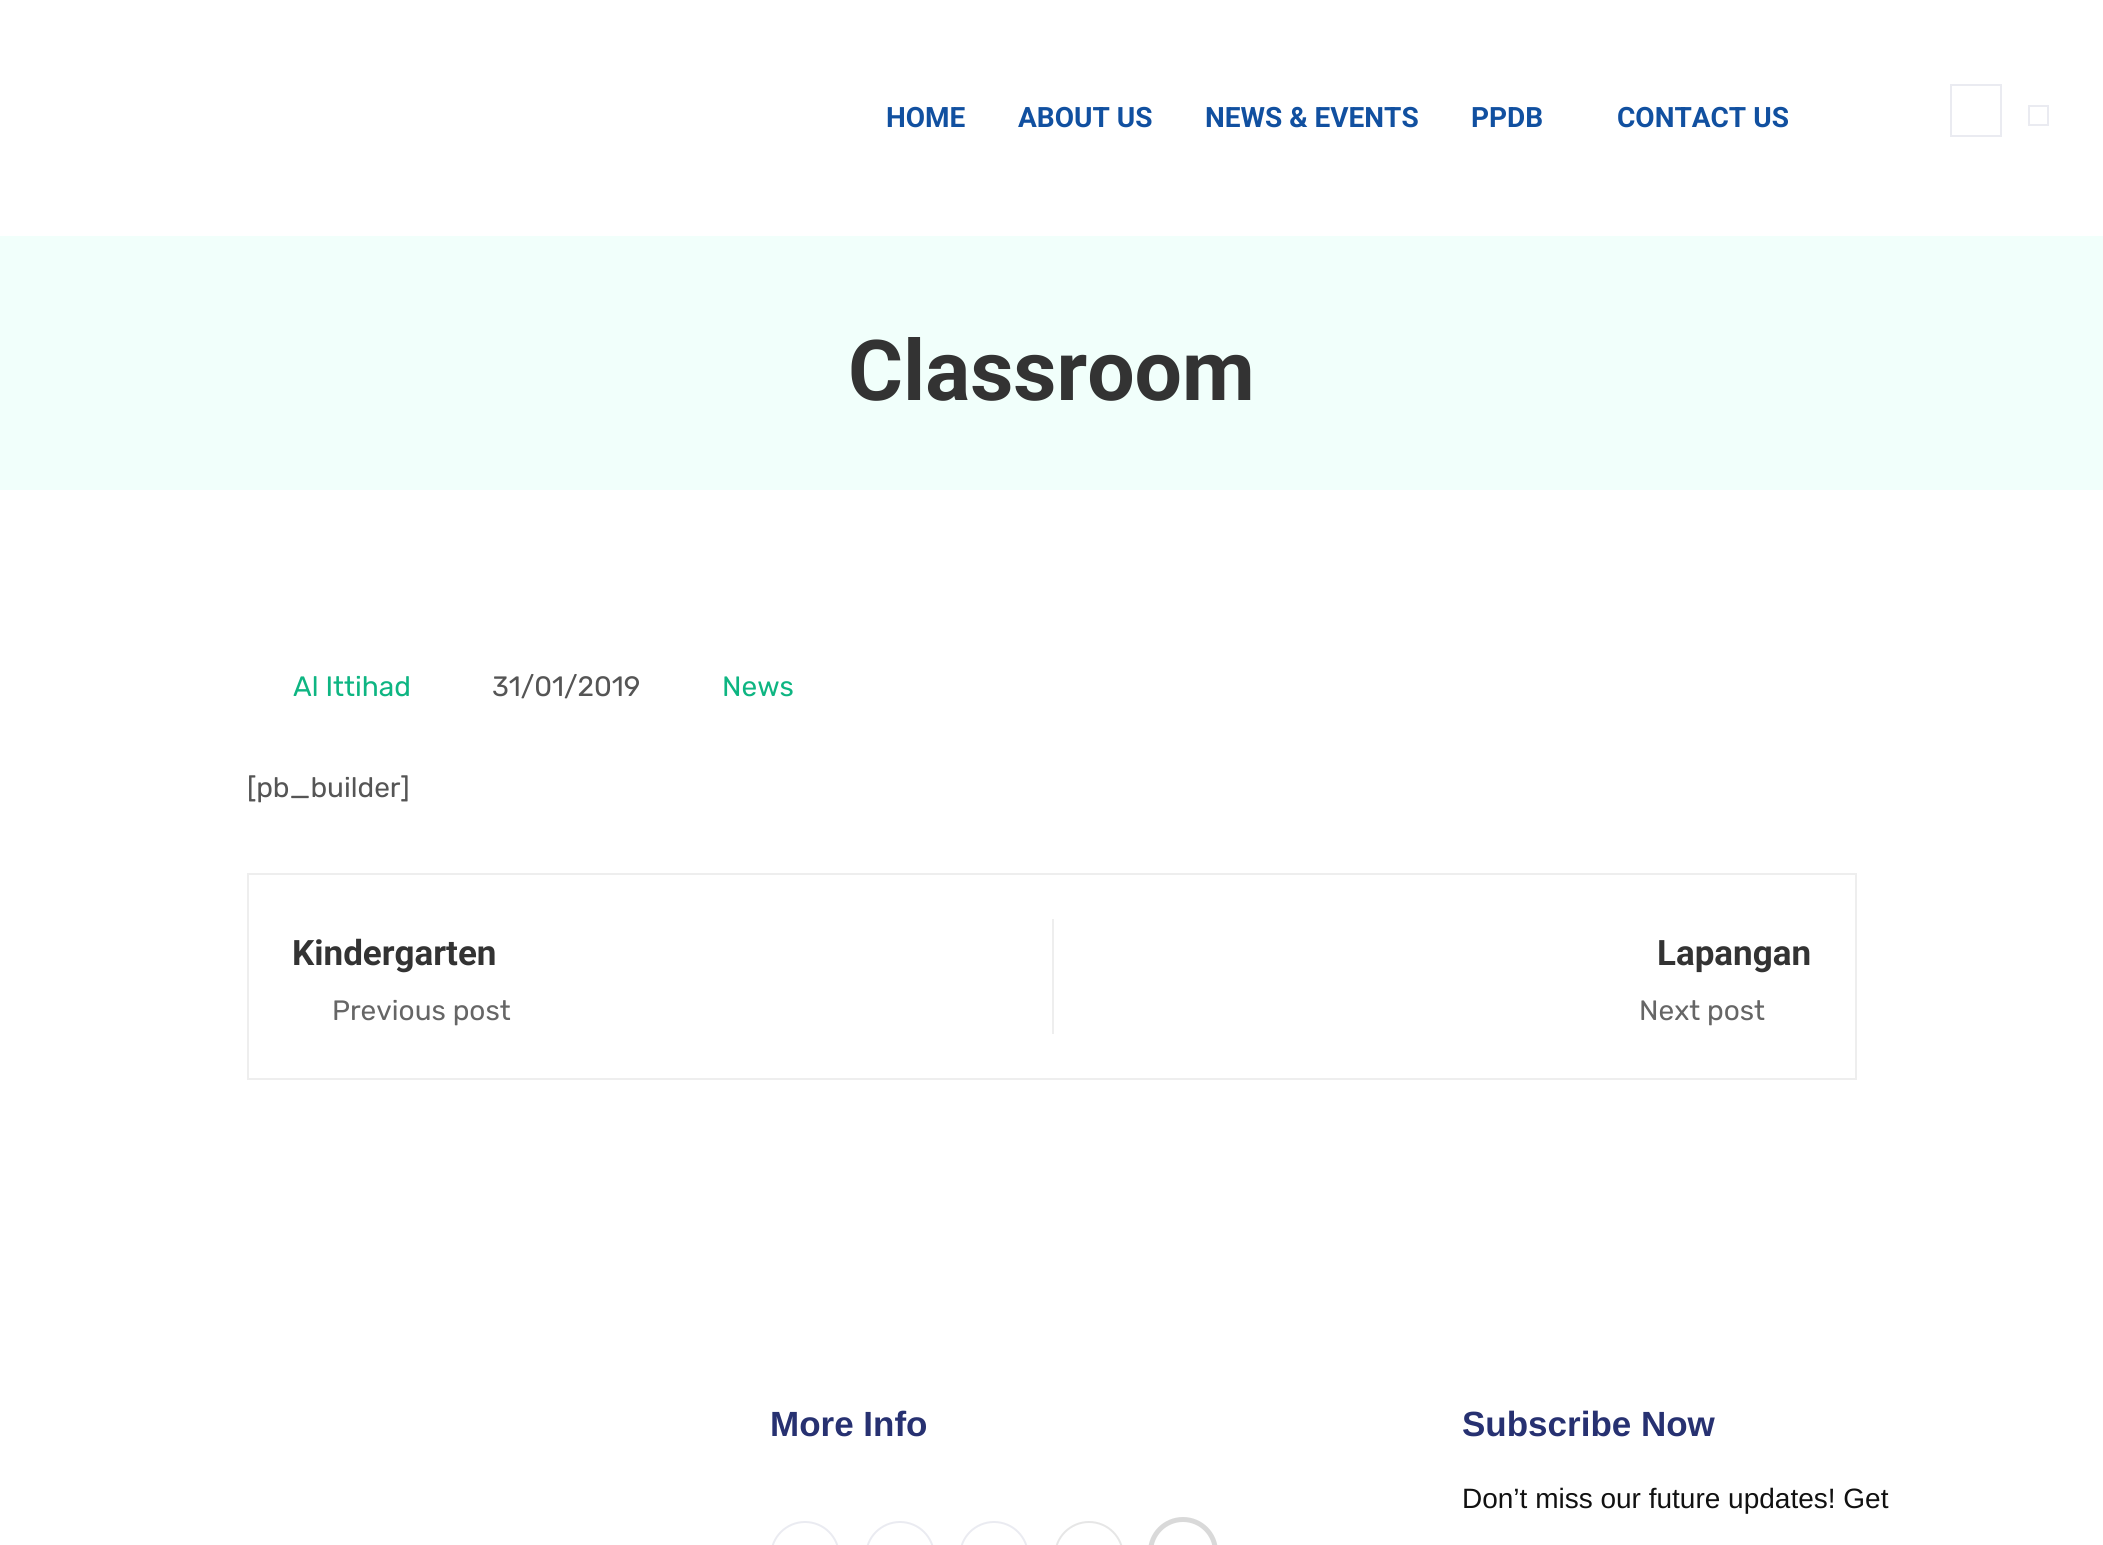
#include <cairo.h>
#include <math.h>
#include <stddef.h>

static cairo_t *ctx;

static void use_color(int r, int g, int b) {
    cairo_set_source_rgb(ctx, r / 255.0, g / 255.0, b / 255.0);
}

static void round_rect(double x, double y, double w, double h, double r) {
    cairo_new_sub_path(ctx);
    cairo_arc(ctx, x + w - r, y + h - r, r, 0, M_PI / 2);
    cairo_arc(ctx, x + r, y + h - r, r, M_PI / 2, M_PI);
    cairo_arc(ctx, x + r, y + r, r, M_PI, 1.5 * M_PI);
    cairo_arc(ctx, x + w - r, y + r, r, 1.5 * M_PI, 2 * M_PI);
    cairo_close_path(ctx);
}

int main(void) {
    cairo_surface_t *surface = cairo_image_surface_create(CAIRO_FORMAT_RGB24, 2103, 1545);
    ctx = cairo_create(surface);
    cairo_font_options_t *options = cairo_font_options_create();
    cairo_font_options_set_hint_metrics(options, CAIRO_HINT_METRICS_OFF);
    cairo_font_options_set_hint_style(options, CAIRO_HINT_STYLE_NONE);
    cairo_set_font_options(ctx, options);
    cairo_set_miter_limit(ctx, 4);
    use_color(255, 255, 255);
    cairo_paint(ctx);
    cairo_select_font_face(ctx, "Roboto", CAIRO_FONT_SLANT_NORMAL, CAIRO_FONT_WEIGHT_BOLD);
    cairo_set_font_size(ctx, 28);
    use_color(17, 80, 160);
    cairo_move_to(ctx, 886, 127);
    cairo_show_text(ctx, "HOME");
    cairo_move_to(ctx, 1018, 127);
    cairo_show_text(ctx, "ABOUT US");
    cairo_move_to(ctx, 1205, 127);
    cairo_show_text(ctx, "NEWS & EVENTS");
    cairo_move_to(ctx, 1471, 127);
    cairo_show_text(ctx, "PPDB");
    cairo_move_to(ctx, 1617, 127);
    cairo_show_text(ctx, "CONTACT US");
    cairo_rectangle(ctx, 1951, 85, 50, 51);
    use_color(234, 235, 241);
    cairo_stroke(ctx);
    cairo_rectangle(ctx, 2029, 106, 19, 19);
    cairo_stroke(ctx);
    use_color(241, 255, 251);
    cairo_rectangle(ctx, 0, 236, 2103, 254);
    cairo_fill(ctx);
    cairo_set_font_size(ctx, 84);
    use_color(51, 51, 51);
    cairo_move_to(ctx, 848, 400);
    cairo_show_text(ctx, "Classroom");
    cairo_select_font_face(ctx, "Rubik", CAIRO_FONT_SLANT_NORMAL, CAIRO_FONT_WEIGHT_NORMAL);
    cairo_set_font_size(ctx, 28);
    use_color(14, 181, 130);
    cairo_move_to(ctx, 293, 696);
    cairo_show_text(ctx, "Al Ittihad");
    use_color(85, 85, 85);
    cairo_move_to(ctx, 492, 696);
    cairo_show_text(ctx, "31/01/2019");
    use_color(14, 181, 130);
    cairo_move_to(ctx, 722, 696);
    cairo_show_text(ctx, "News");
    use_color(85, 85, 85);
    cairo_move_to(ctx, 247, 797);
    cairo_show_text(ctx, "[pb_builder]");
    cairo_rectangle(ctx, 248, 874, 1608, 205);
    use_color(238, 238, 238);
    cairo_stroke(ctx);
    cairo_select_font_face(ctx, "Roboto", CAIRO_FONT_SLANT_NORMAL, CAIRO_FONT_WEIGHT_BOLD);
    cairo_set_font_size(ctx, 35);
    use_color(51, 51, 51);
    cairo_move_to(ctx, 292, 965);
    cairo_show_text(ctx, "Kindergarten");
    cairo_select_font_face(ctx, "Rubik", CAIRO_FONT_SLANT_NORMAL, CAIRO_FONT_WEIGHT_NORMAL);
    cairo_set_font_size(ctx, 28);
    use_color(102, 102, 102);
    cairo_move_to(ctx, 332, 1020);
    cairo_show_text(ctx, "Previous post");
    use_color(238, 238, 238);
    cairo_rectangle(ctx, 1052, 919, 2, 115);
    cairo_fill(ctx);
    cairo_select_font_face(ctx, "Roboto", CAIRO_FONT_SLANT_NORMAL, CAIRO_FONT_WEIGHT_BOLD);
    cairo_set_font_size(ctx, 35);
    use_color(51, 51, 51);
    cairo_move_to(ctx, 1657, 965);
    cairo_show_text(ctx, "Lapangan");
    cairo_select_font_face(ctx, "Rubik", CAIRO_FONT_SLANT_NORMAL, CAIRO_FONT_WEIGHT_NORMAL);
    cairo_set_font_size(ctx, 28);
    use_color(102, 102, 102);
    cairo_move_to(ctx, 1639, 1020);
    cairo_show_text(ctx, "Next post");
    cairo_select_font_face(ctx, "Liberation Sans", CAIRO_FONT_SLANT_NORMAL, CAIRO_FONT_WEIGHT_BOLD);
    cairo_set_font_size(ctx, 35);
    use_color(39, 49, 113);
    cairo_move_to(ctx, 770, 1436);
    cairo_show_text(ctx, "More Info");
    round_rect(771, 1522, 68, 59, 34);
    use_color(234, 235, 241);
    cairo_stroke(ctx);
    round_rect(866, 1522, 68, 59, 34);
    cairo_stroke(ctx);
    round_rect(960, 1522, 68, 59, 34);
    cairo_stroke(ctx);
    round_rect(1055, 1522, 68, 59, 34);
    use_color(230, 230, 230);
    cairo_stroke(ctx);
    round_rect(1150.5, 1519.5, 65, 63, 32.5);
    use_color(217, 217, 217);
    cairo_set_line_width(ctx, 5);
    cairo_stroke(ctx);
    use_color(39, 49, 113);
    cairo_move_to(ctx, 1462, 1436);
    cairo_show_text(ctx, "Subscribe Now");
    cairo_select_font_face(ctx, "Liberation Sans", CAIRO_FONT_SLANT_NORMAL, CAIRO_FONT_WEIGHT_NORMAL);
    cairo_set_font_size(ctx, 28);
    use_color(17, 17, 17);
    cairo_move_to(ctx, 1462, 1508);
    cairo_show_text(ctx, "Don’t miss our future updates! Get");
    cairo_surface_write_to_png(surface, "result.png");
    cairo_font_options_destroy(options);
    cairo_destroy(ctx);
    cairo_surface_destroy(surface);
    return 0;
}
